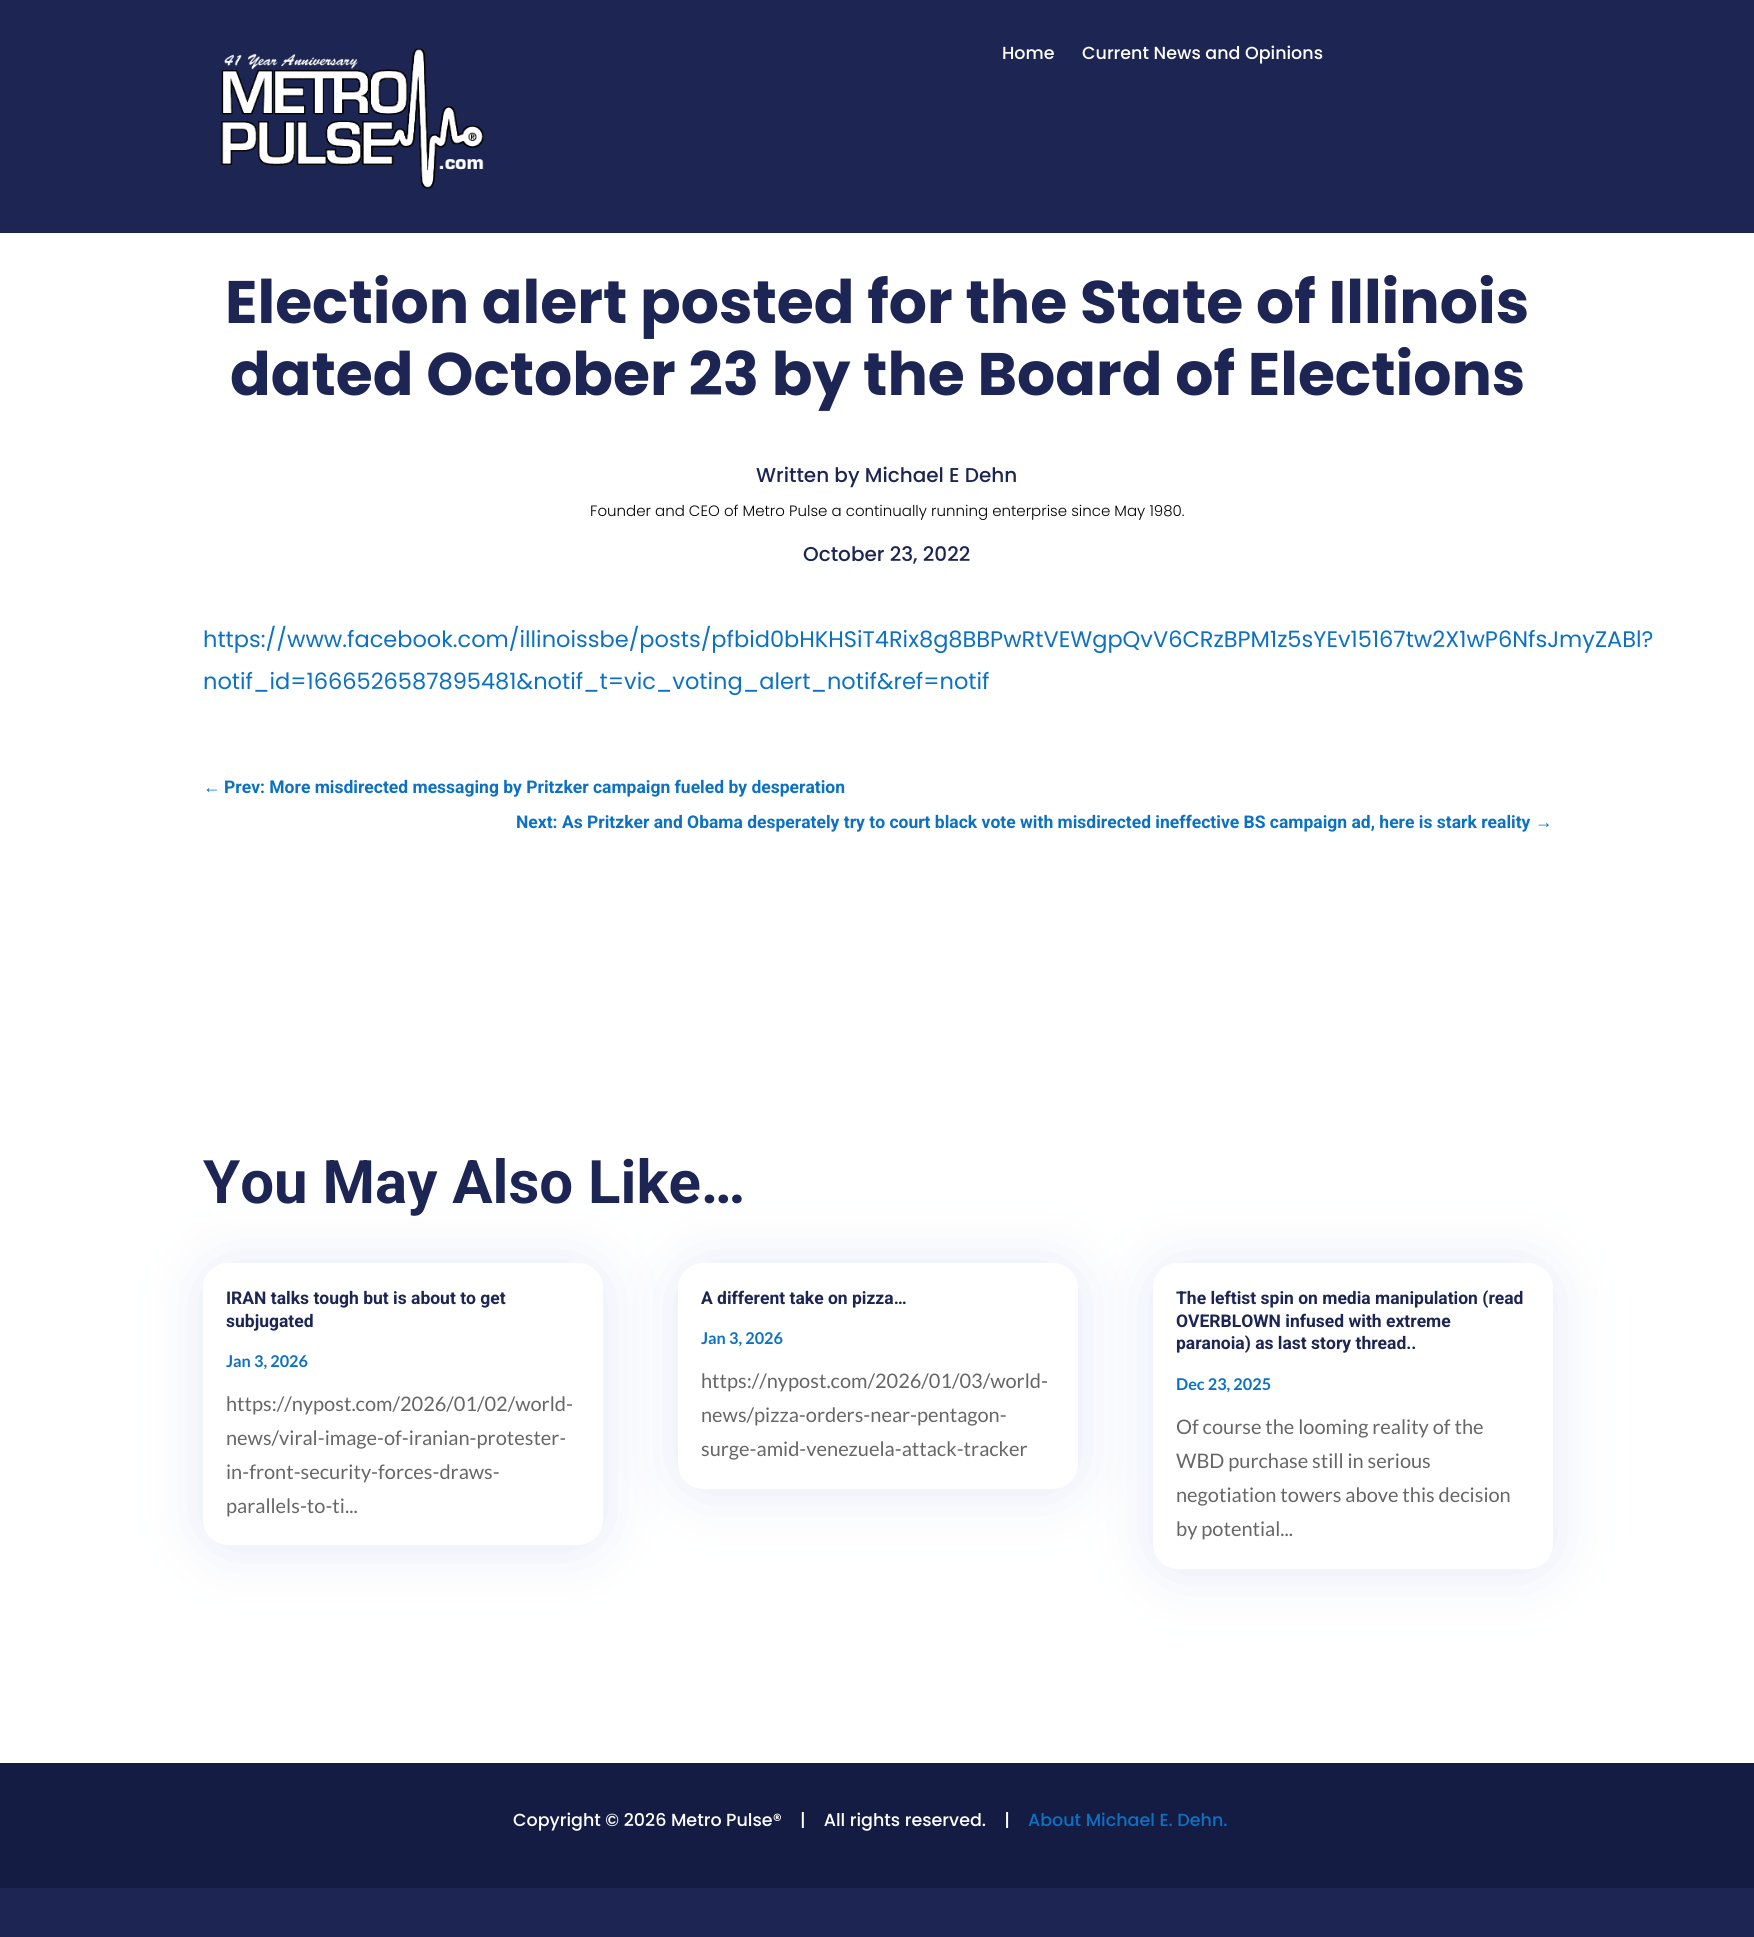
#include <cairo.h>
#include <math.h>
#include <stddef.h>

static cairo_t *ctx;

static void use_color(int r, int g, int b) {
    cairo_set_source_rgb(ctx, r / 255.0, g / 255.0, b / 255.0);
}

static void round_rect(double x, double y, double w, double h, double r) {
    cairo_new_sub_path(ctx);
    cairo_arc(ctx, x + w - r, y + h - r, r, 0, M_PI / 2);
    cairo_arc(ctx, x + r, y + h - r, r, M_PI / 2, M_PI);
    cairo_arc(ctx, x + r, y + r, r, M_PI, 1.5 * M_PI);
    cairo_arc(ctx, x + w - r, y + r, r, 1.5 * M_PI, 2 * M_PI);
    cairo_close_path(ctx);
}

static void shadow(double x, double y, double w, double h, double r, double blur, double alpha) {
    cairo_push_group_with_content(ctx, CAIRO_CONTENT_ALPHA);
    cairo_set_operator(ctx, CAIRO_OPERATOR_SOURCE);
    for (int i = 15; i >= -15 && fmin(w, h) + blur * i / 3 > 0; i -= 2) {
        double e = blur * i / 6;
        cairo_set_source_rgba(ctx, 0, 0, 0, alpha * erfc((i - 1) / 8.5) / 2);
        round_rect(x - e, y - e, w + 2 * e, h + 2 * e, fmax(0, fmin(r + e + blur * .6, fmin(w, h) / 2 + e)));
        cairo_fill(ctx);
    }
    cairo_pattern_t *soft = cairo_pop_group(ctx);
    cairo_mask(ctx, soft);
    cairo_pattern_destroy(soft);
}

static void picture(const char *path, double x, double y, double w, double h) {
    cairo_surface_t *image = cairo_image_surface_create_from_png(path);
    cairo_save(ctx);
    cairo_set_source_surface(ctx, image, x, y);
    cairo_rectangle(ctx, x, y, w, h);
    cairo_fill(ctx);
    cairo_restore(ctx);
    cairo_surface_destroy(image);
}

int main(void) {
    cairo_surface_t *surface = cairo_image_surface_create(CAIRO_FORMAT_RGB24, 1754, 1937);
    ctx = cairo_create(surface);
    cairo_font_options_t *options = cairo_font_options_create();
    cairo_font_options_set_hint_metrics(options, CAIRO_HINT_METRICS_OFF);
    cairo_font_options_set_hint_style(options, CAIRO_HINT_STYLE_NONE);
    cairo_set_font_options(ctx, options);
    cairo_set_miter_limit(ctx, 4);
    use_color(29, 38, 82);
    cairo_paint(ctx);
    picture("img1.png", 220, 48, 264, 141);
    cairo_select_font_face(ctx, "Poppins Medium", CAIRO_FONT_SLANT_NORMAL, CAIRO_FONT_WEIGHT_NORMAL);
    cairo_set_font_size(ctx, 17.5);
    use_color(255, 255, 255);
    cairo_move_to(ctx, 1002, 59);
    cairo_show_text(ctx, "Home");
    cairo_move_to(ctx, 1082, 59);
    cairo_show_text(ctx, "Current News and Opinions");
    cairo_rectangle(ctx, 0, 233, 1754, 1530);
    cairo_fill(ctx);
    cairo_select_font_face(ctx, "Poppins", CAIRO_FONT_SLANT_NORMAL, CAIRO_FONT_WEIGHT_BOLD);
    cairo_set_font_size(ctx, 60);
    use_color(28, 37, 83);
    cairo_move_to(ctx, 225, 323);
    cairo_show_text(ctx, "Election alert posted for the State of Illinois");
    cairo_move_to(ctx, 230, 395);
    cairo_show_text(ctx, "dated October 23 by the Board of Elections");
    cairo_select_font_face(ctx, "Poppins Medium", CAIRO_FONT_SLANT_NORMAL, CAIRO_FONT_WEIGHT_NORMAL);
    cairo_set_font_size(ctx, 20);
    cairo_move_to(ctx, 756, 482);
    cairo_show_text(ctx, "Written by Michael E Dehn");
    cairo_select_font_face(ctx, "Poppins Light", CAIRO_FONT_SLANT_NORMAL, CAIRO_FONT_WEIGHT_NORMAL);
    cairo_set_font_size(ctx, 15);
    use_color(0, 0, 0);
    cairo_move_to(ctx, 590, 516);
    cairo_show_text(ctx, "Founder and CEO of Metro Pulse a continually running enterprise since May 1980.");
    cairo_select_font_face(ctx, "Poppins Medium", CAIRO_FONT_SLANT_NORMAL, CAIRO_FONT_WEIGHT_NORMAL);
    cairo_set_font_size(ctx, 20);
    use_color(28, 37, 83);
    cairo_move_to(ctx, 803, 561);
    cairo_show_text(ctx, "October 23, 2022");
    cairo_select_font_face(ctx, "Poppins", CAIRO_FONT_SLANT_NORMAL, CAIRO_FONT_WEIGHT_NORMAL);
    cairo_set_font_size(ctx, 22.5);
    use_color(12, 113, 195);
    cairo_move_to(ctx, 203, 647);
    cairo_show_text(ctx, "https://www.facebook.com/illinoissbe/posts/pfbid0bHKHSiT4Rix8g8BBPwRtVEWgpQvV6CRzBPM1z5sYEv15167tw2X1wP6NfsJmyZABl?");
    cairo_move_to(ctx, 203, 689);
    cairo_show_text(ctx, "notif_id=1666526587895481&notif_t=vic_voting_alert_notif&ref=notif");
    cairo_select_font_face(ctx, "Liberation Sans", CAIRO_FONT_SLANT_NORMAL, CAIRO_FONT_WEIGHT_BOLD);
    cairo_set_font_size(ctx, 17.5);
    cairo_move_to(ctx, 203, 793);
    cairo_show_text(ctx, "←");
    cairo_select_font_face(ctx, "Roboto", CAIRO_FONT_SLANT_NORMAL, CAIRO_FONT_WEIGHT_BOLD);
    cairo_move_to(ctx, 224, 793);
    cairo_show_text(ctx, "Prev: More misdirected messaging by Pritzker campaign fueled by desperation");
    cairo_move_to(ctx, 516, 828);
    cairo_show_text(ctx, "Next: As Pritzker and Obama desperately try to court black vote with misdirected ineffective BS campaign ad, here is stark reality");
    cairo_select_font_face(ctx, "Liberation Sans", CAIRO_FONT_SLANT_NORMAL, CAIRO_FONT_WEIGHT_BOLD);
    cairo_move_to(ctx, 1535, 828);
    cairo_show_text(ctx, "→");
    cairo_select_font_face(ctx, "Roboto", CAIRO_FONT_SLANT_NORMAL, CAIRO_FONT_WEIGHT_BOLD);
    cairo_set_font_size(ctx, 60);
    use_color(28, 37, 83);
    cairo_move_to(ctx, 203, 1203);
    cairo_show_text(ctx, "You May Also Like…");
    use_color(110, 130, 208);
    shadow(203, 1265, 400, 283, 25, 31, 0.18);
    use_color(255, 255, 255);
    round_rect(203, 1263, 400, 282, 25);
    cairo_fill(ctx);
    cairo_set_font_size(ctx, 17.5);
    use_color(28, 37, 83);
    cairo_move_to(ctx, 226, 1304);
    cairo_show_text(ctx, "IRAN talks tough but is about to get");
    cairo_move_to(ctx, 226, 1327);
    cairo_show_text(ctx, "subjugated");
    cairo_select_font_face(ctx, "Lato", CAIRO_FONT_SLANT_NORMAL, CAIRO_FONT_WEIGHT_BOLD);
    cairo_set_font_size(ctx, 16.25);
    use_color(12, 113, 195);
    cairo_move_to(ctx, 226, 1367);
    cairo_show_text(ctx, "Jan 3, 2026");
    cairo_select_font_face(ctx, "Lato", CAIRO_FONT_SLANT_NORMAL, CAIRO_FONT_WEIGHT_NORMAL);
    cairo_set_font_size(ctx, 20);
    use_color(102, 102, 102);
    cairo_move_to(ctx, 226, 1411);
    cairo_show_text(ctx, "https://nypost.com/2026/01/02/world-");
    cairo_move_to(ctx, 226, 1445);
    cairo_show_text(ctx, "news/viral-image-of-iranian-protester-");
    cairo_move_to(ctx, 226, 1479);
    cairo_show_text(ctx, "in-front-security-forces-draws-");
    cairo_move_to(ctx, 226, 1513);
    cairo_show_text(ctx, "parallels-to-ti...");
    use_color(110, 130, 208);
    shadow(678, 1265, 400, 226, 25, 31, 0.18);
    use_color(255, 255, 255);
    round_rect(678, 1263, 400, 226, 25);
    cairo_fill(ctx);
    cairo_select_font_face(ctx, "Roboto", CAIRO_FONT_SLANT_NORMAL, CAIRO_FONT_WEIGHT_BOLD);
    cairo_set_font_size(ctx, 17.5);
    use_color(28, 37, 83);
    cairo_move_to(ctx, 701, 1304);
    cairo_show_text(ctx, "A different take on pizza…");
    cairo_select_font_face(ctx, "Lato", CAIRO_FONT_SLANT_NORMAL, CAIRO_FONT_WEIGHT_BOLD);
    cairo_set_font_size(ctx, 16.25);
    use_color(12, 113, 195);
    cairo_move_to(ctx, 701, 1344);
    cairo_show_text(ctx, "Jan 3, 2026");
    cairo_select_font_face(ctx, "Lato", CAIRO_FONT_SLANT_NORMAL, CAIRO_FONT_WEIGHT_NORMAL);
    cairo_set_font_size(ctx, 20);
    use_color(102, 102, 102);
    cairo_move_to(ctx, 701, 1388);
    cairo_show_text(ctx, "https://nypost.com/2026/01/03/world-");
    cairo_move_to(ctx, 701, 1422);
    cairo_show_text(ctx, "news/pizza-orders-near-pentagon-");
    cairo_move_to(ctx, 701, 1456);
    cairo_show_text(ctx, "surge-amid-venezuela-attack-tracker");
    use_color(110, 130, 208);
    shadow(1153, 1265, 400, 306, 25, 31, 0.18);
    use_color(255, 255, 255);
    round_rect(1153, 1263, 400, 306, 25);
    cairo_fill(ctx);
    cairo_select_font_face(ctx, "Roboto", CAIRO_FONT_SLANT_NORMAL, CAIRO_FONT_WEIGHT_BOLD);
    cairo_set_font_size(ctx, 17.5);
    use_color(28, 37, 83);
    cairo_move_to(ctx, 1176, 1304);
    cairo_show_text(ctx, "The leftist spin on media manipulation (read");
    cairo_move_to(ctx, 1176, 1327);
    cairo_show_text(ctx, "OVERBLOWN infused with extreme");
    cairo_move_to(ctx, 1176, 1349);
    cairo_show_text(ctx, "paranoia) as last story thread..");
    cairo_select_font_face(ctx, "Lato", CAIRO_FONT_SLANT_NORMAL, CAIRO_FONT_WEIGHT_BOLD);
    cairo_set_font_size(ctx, 16.25);
    use_color(12, 113, 195);
    cairo_move_to(ctx, 1176, 1390);
    cairo_show_text(ctx, "Dec 23, 2025");
    cairo_select_font_face(ctx, "Lato", CAIRO_FONT_SLANT_NORMAL, CAIRO_FONT_WEIGHT_NORMAL);
    cairo_set_font_size(ctx, 20);
    use_color(102, 102, 102);
    cairo_move_to(ctx, 1176, 1434);
    cairo_show_text(ctx, "Of course the looming reality of the");
    cairo_move_to(ctx, 1176, 1468);
    cairo_show_text(ctx, "WBD purchase still in serious");
    cairo_move_to(ctx, 1176, 1502);
    cairo_show_text(ctx, "negotiation towers above this decision");
    cairo_move_to(ctx, 1176, 1536);
    cairo_show_text(ctx, "by potential...");
    use_color(21, 28, 68);
    cairo_rectangle(ctx, 0, 1763, 1754, 125);
    cairo_fill(ctx);
    cairo_select_font_face(ctx, "Poppins Medium", CAIRO_FONT_SLANT_NORMAL, CAIRO_FONT_WEIGHT_NORMAL);
    cairo_set_font_size(ctx, 17.5);
    use_color(255, 255, 255);
    cairo_move_to(ctx, 513, 1826);
    cairo_show_text(ctx, "Copyright © 2026 Metro Pulse®    |    All rights reserved.    |");
    use_color(12, 113, 195);
    cairo_move_to(ctx, 1028, 1826);
    cairo_show_text(ctx, "About Michael E. Dehn.");
    cairo_surface_write_to_png(surface, "result.png");
    cairo_font_options_destroy(options);
    cairo_destroy(ctx);
    cairo_surface_destroy(surface);
    return 0;
}
